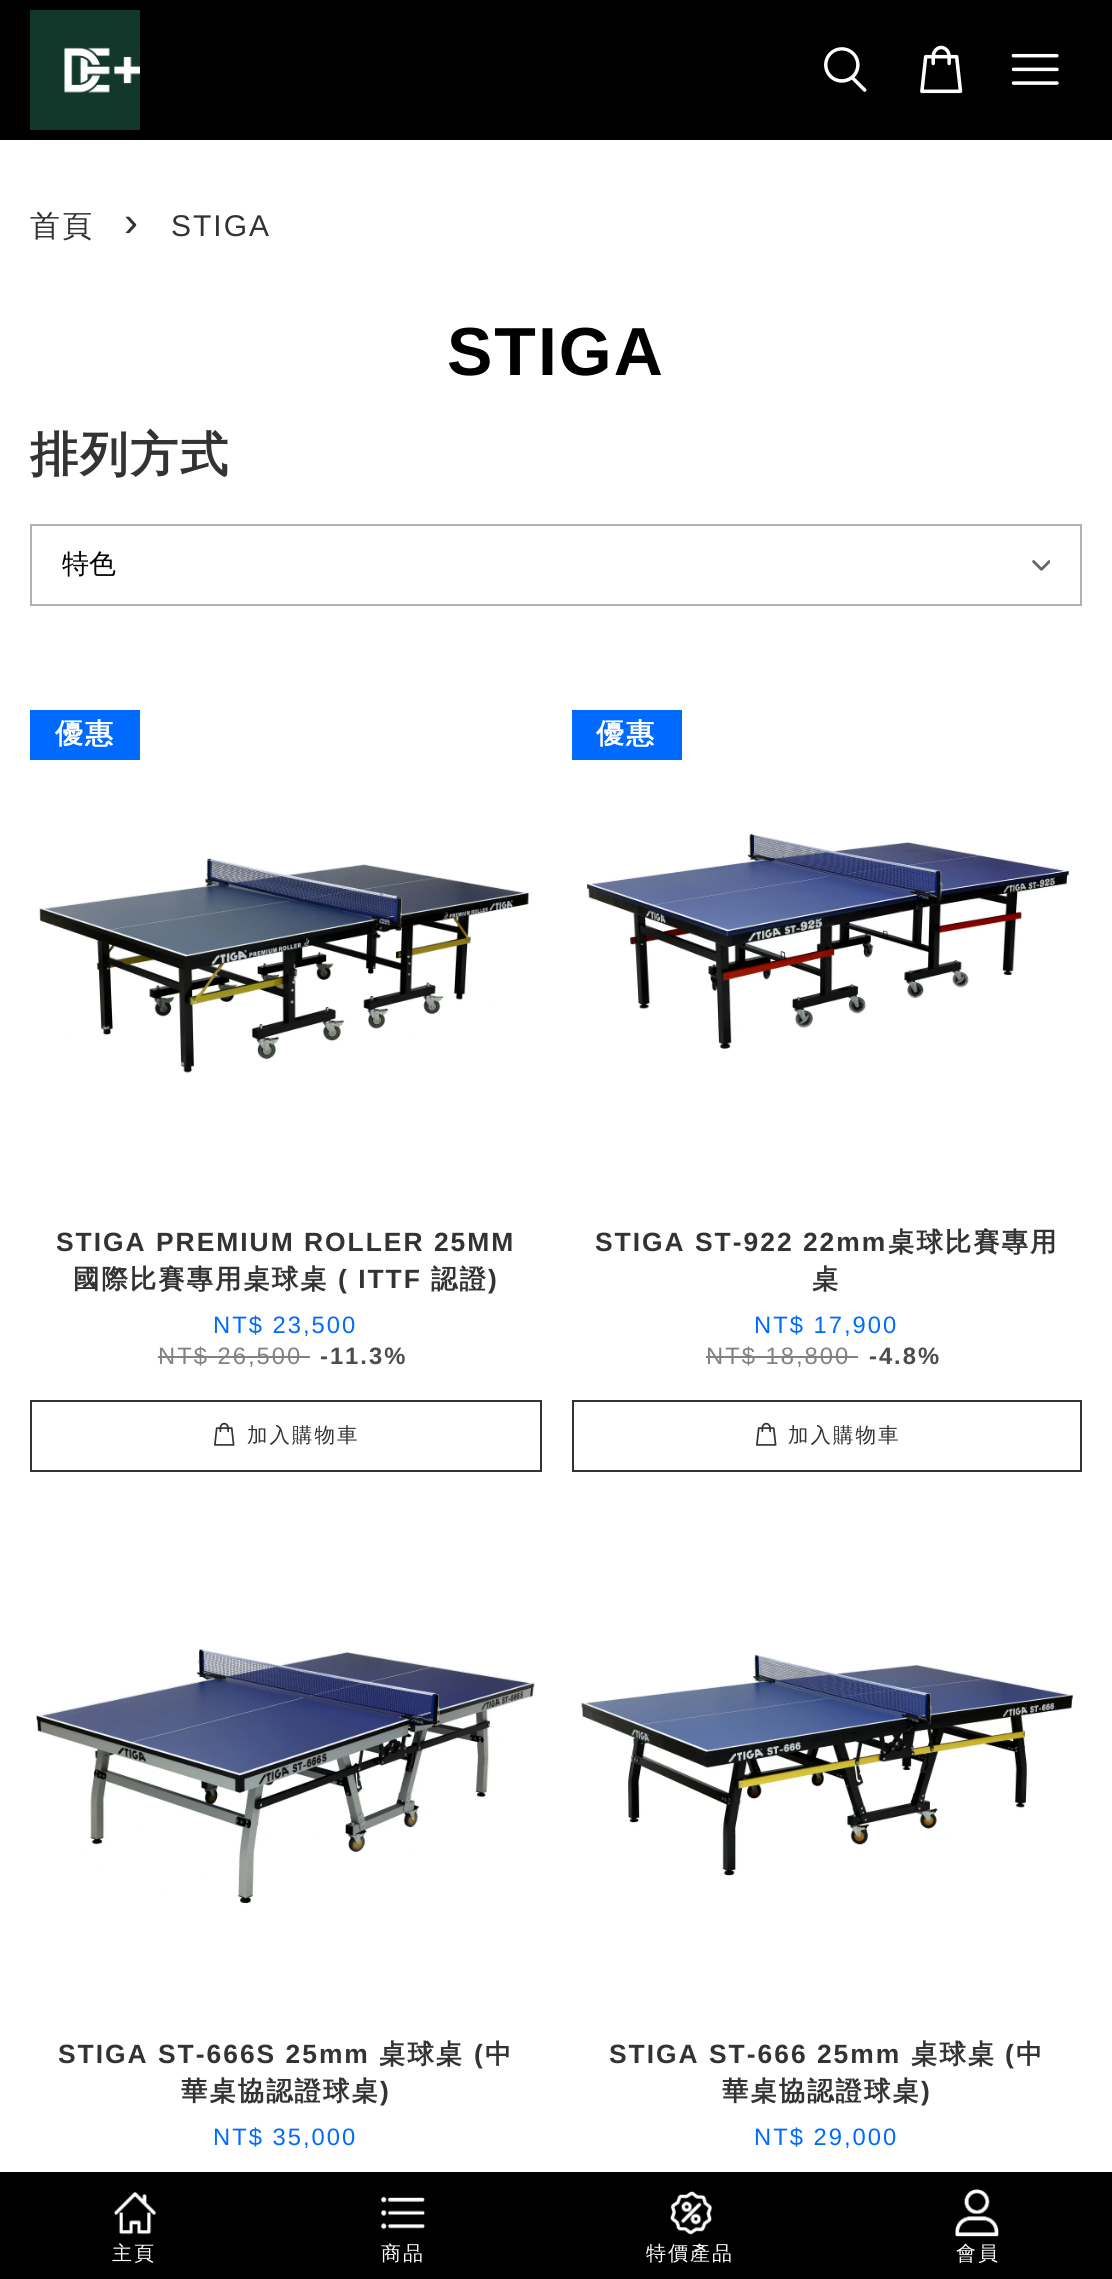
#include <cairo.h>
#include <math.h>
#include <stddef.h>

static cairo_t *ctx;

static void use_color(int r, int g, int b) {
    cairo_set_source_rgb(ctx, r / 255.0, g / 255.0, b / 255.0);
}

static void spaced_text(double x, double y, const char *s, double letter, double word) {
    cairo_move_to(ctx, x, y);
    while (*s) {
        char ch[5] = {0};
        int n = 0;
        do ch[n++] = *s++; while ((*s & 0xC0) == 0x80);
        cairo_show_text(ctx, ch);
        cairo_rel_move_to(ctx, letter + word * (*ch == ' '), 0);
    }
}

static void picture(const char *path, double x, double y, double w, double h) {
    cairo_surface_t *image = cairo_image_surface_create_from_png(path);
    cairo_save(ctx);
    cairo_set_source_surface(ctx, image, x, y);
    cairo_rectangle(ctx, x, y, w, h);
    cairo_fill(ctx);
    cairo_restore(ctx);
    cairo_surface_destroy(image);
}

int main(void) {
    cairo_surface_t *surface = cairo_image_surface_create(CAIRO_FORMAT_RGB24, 1112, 2279);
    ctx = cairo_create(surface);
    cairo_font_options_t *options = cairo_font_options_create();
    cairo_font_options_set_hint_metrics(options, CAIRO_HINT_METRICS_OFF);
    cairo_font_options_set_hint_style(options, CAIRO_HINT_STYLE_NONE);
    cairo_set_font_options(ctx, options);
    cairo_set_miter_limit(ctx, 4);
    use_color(255, 255, 255);
    cairo_paint(ctx);
    use_color(0, 0, 0);
    cairo_rectangle(ctx, 0, 0, 1112, 140);
    cairo_fill(ctx);
    picture("img1.png", 30, 10, 110, 120);
    picture("img2.png", 824, 47, 43, 45);
    picture("img3.png", 920, 45, 43, 49);
    picture("img4.png", 1011, 53, 48, 32);
    cairo_select_font_face(ctx, "WenQuanYi Zen Hei Medium", CAIRO_FONT_SLANT_NORMAL, CAIRO_FONT_WEIGHT_NORMAL);
    cairo_set_font_size(ctx, 30);
    use_color(51, 51, 51);
    spaced_text(30, 236, "首頁", 2, 0);
    cairo_select_font_face(ctx, "Liberation Sans", CAIRO_FONT_SLANT_NORMAL, CAIRO_FONT_WEIGHT_NORMAL);
    cairo_set_font_size(ctx, 42);
    spaced_text(124, 236, "›", 2, 0);
    cairo_set_font_size(ctx, 30);
    spaced_text(171, 236, "STIGA", 2, 0);
    cairo_select_font_face(ctx, "Liberation Sans", CAIRO_FONT_SLANT_NORMAL, CAIRO_FONT_WEIGHT_BOLD);
    cairo_set_font_size(ctx, 68);
    use_color(0, 0, 0);
    spaced_text(447, 375, "STIGA", 2, 0);
    cairo_select_font_face(ctx, "WenQuanYi Zen Hei", CAIRO_FONT_SLANT_NORMAL, CAIRO_FONT_WEIGHT_BOLD);
    cairo_set_font_size(ctx, 48);
    use_color(51, 51, 51);
    spaced_text(30, 471, "排列方式", 2, 0);
    picture("img5.png", 1032, 560, 18, 11);
    cairo_rectangle(ctx, 31, 525, 1050, 80);
    use_color(177, 177, 177);
    cairo_stroke(ctx);
    cairo_select_font_face(ctx, "WenQuanYi Zen Hei Medium", CAIRO_FONT_SLANT_NORMAL, CAIRO_FONT_WEIGHT_NORMAL);
    cairo_set_font_size(ctx, 27);
    use_color(0, 0, 0);
    cairo_move_to(ctx, 62, 573);
    cairo_show_text(ctx, "特色");
    use_color(0, 106, 255);
    cairo_rectangle(ctx, 30, 710, 110, 50);
    cairo_fill(ctx);
    cairo_select_font_face(ctx, "WenQuanYi Zen Hei", CAIRO_FONT_SLANT_NORMAL, CAIRO_FONT_WEIGHT_BOLD);
    cairo_set_font_size(ctx, 28);
    use_color(255, 255, 255);
    spaced_text(55, 743, "優惠", 2, 0);
    picture("img6.png", 39, 858, 491, 215);
    cairo_select_font_face(ctx, "Liberation Sans", CAIRO_FONT_SLANT_NORMAL, CAIRO_FONT_WEIGHT_BOLD);
    cairo_set_font_size(ctx, 26.4);
    use_color(51, 51, 51);
    spaced_text(56, 1251, "STIGA PREMIUM ROLLER 25MM", 2, 0);
    cairo_select_font_face(ctx, "WenQuanYi Zen Hei", CAIRO_FONT_SLANT_NORMAL, CAIRO_FONT_WEIGHT_BOLD);
    spaced_text(73, 1288, "國際比賽專用桌球桌", 2, 0);
    cairo_select_font_face(ctx, "Liberation Sans", CAIRO_FONT_SLANT_NORMAL, CAIRO_FONT_WEIGHT_BOLD);
    spaced_text(338, 1288, "( ITTF", 2, 0);
    cairo_select_font_face(ctx, "WenQuanYi Zen Hei", CAIRO_FONT_SLANT_NORMAL, CAIRO_FONT_WEIGHT_BOLD);
    spaced_text(431, 1288, "認證", 2, 0);
    cairo_select_font_face(ctx, "Liberation Sans", CAIRO_FONT_SLANT_NORMAL, CAIRO_FONT_WEIGHT_BOLD);
    spaced_text(488, 1288, ")", 2, 0);
    cairo_select_font_face(ctx, "Liberation Sans", CAIRO_FONT_SLANT_NORMAL, CAIRO_FONT_WEIGHT_NORMAL);
    cairo_set_font_size(ctx, 23.75);
    use_color(0, 106, 255);
    spaced_text(213, 1333, "NT$ 23,500", 2, 0);
    use_color(130, 130, 130);
    spaced_text(158, 1364, "NT$ 26,500", 2, 0);
    cairo_rectangle(ctx, 158, 1356, 152, 2);
    cairo_fill(ctx);
    cairo_select_font_face(ctx, "Liberation Sans", CAIRO_FONT_SLANT_NORMAL, CAIRO_FONT_WEIGHT_BOLD);
    use_color(77, 77, 77);
    spaced_text(320, 1364, "-11.3%", 2, 0);
    cairo_rectangle(ctx, 31, 1401, 510, 70);
    use_color(51, 51, 51);
    cairo_stroke(ctx);
    picture("img7.png", 214, 1422, 21, 24);
    cairo_select_font_face(ctx, "WenQuanYi Zen Hei Medium", CAIRO_FONT_SLANT_NORMAL, CAIRO_FONT_WEIGHT_NORMAL);
    cairo_set_font_size(ctx, 20.5);
    spaced_text(247, 1442, "加入購物車", 2, 0);
    use_color(0, 106, 255);
    cairo_rectangle(ctx, 572, 710, 110, 50);
    cairo_fill(ctx);
    cairo_select_font_face(ctx, "WenQuanYi Zen Hei", CAIRO_FONT_SLANT_NORMAL, CAIRO_FONT_WEIGHT_BOLD);
    cairo_set_font_size(ctx, 28);
    use_color(255, 255, 255);
    spaced_text(596, 743, "優惠", 2, 0);
    picture("img8.png", 587, 834, 482, 215);
    cairo_select_font_face(ctx, "Liberation Sans", CAIRO_FONT_SLANT_NORMAL, CAIRO_FONT_WEIGHT_BOLD);
    cairo_set_font_size(ctx, 26.4);
    use_color(51, 51, 51);
    spaced_text(595, 1251, "STIGA ST-922 22mm", 2, 0);
    cairo_select_font_face(ctx, "WenQuanYi Zen Hei", CAIRO_FONT_SLANT_NORMAL, CAIRO_FONT_WEIGHT_BOLD);
    spaced_text(888, 1251, "桌球比賽專用", 2, 0);
    spaced_text(812, 1288, "桌", 2, 0);
    cairo_select_font_face(ctx, "Liberation Sans", CAIRO_FONT_SLANT_NORMAL, CAIRO_FONT_WEIGHT_NORMAL);
    cairo_set_font_size(ctx, 23.75);
    use_color(0, 106, 255);
    spaced_text(754, 1333, "NT$ 17,900", 2, 0);
    use_color(130, 130, 130);
    spaced_text(706, 1364, "NT$ 18,800", 2, 0);
    cairo_rectangle(ctx, 706, 1356, 152, 2);
    cairo_fill(ctx);
    cairo_select_font_face(ctx, "Liberation Sans", CAIRO_FONT_SLANT_NORMAL, CAIRO_FONT_WEIGHT_BOLD);
    use_color(77, 77, 77);
    spaced_text(869, 1364, "-4.8%", 2, 0);
    cairo_rectangle(ctx, 573, 1401, 508, 70);
    use_color(51, 51, 51);
    cairo_stroke(ctx);
    picture("img7.png", 756, 1422, 21, 24);
    cairo_select_font_face(ctx, "WenQuanYi Zen Hei Medium", CAIRO_FONT_SLANT_NORMAL, CAIRO_FONT_WEIGHT_NORMAL);
    cairo_set_font_size(ctx, 20.5);
    spaced_text(788, 1442, "加入購物車", 2, 0);
    picture("img9.png", 36, 1649, 499, 256);
    cairo_select_font_face(ctx, "Liberation Sans", CAIRO_FONT_SLANT_NORMAL, CAIRO_FONT_WEIGHT_BOLD);
    cairo_set_font_size(ctx, 26.4);
    spaced_text(58, 2063, "STIGA ST-666S 25mm", 2, 0);
    cairo_select_font_face(ctx, "WenQuanYi Zen Hei", CAIRO_FONT_SLANT_NORMAL, CAIRO_FONT_WEIGHT_BOLD);
    spaced_text(379, 2063, "桌球桌", 2, 0);
    cairo_select_font_face(ctx, "Liberation Sans", CAIRO_FONT_SLANT_NORMAL, CAIRO_FONT_WEIGHT_BOLD);
    spaced_text(474, 2063, "(", 2, 0);
    cairo_select_font_face(ctx, "WenQuanYi Zen Hei", CAIRO_FONT_SLANT_NORMAL, CAIRO_FONT_WEIGHT_BOLD);
    spaced_text(485, 2063, "中", 2, 0);
    spaced_text(181, 2100, "華桌協認證球桌", 2, 0);
    cairo_select_font_face(ctx, "Liberation Sans", CAIRO_FONT_SLANT_NORMAL, CAIRO_FONT_WEIGHT_BOLD);
    spaced_text(380, 2100, ")", 2, 0);
    cairo_select_font_face(ctx, "Liberation Sans", CAIRO_FONT_SLANT_NORMAL, CAIRO_FONT_WEIGHT_NORMAL);
    cairo_set_font_size(ctx, 23.75);
    use_color(0, 106, 255);
    spaced_text(213, 2145, "NT$ 35,000", 2, 0);
    picture("img10.png", 581, 1654, 493, 222);
    cairo_select_font_face(ctx, "Liberation Sans", CAIRO_FONT_SLANT_NORMAL, CAIRO_FONT_WEIGHT_BOLD);
    cairo_set_font_size(ctx, 26.4);
    use_color(51, 51, 51);
    spaced_text(609, 2063, "STIGA ST-666 25mm", 2, 0);
    cairo_select_font_face(ctx, "WenQuanYi Zen Hei", CAIRO_FONT_SLANT_NORMAL, CAIRO_FONT_WEIGHT_BOLD);
    spaced_text(911, 2063, "桌球桌", 2, 0);
    cairo_select_font_face(ctx, "Liberation Sans", CAIRO_FONT_SLANT_NORMAL, CAIRO_FONT_WEIGHT_BOLD);
    spaced_text(1005, 2063, "(", 2, 0);
    cairo_select_font_face(ctx, "WenQuanYi Zen Hei", CAIRO_FONT_SLANT_NORMAL, CAIRO_FONT_WEIGHT_BOLD);
    spaced_text(1016, 2063, "中", 2, 0);
    spaced_text(722, 2100, "華桌協認證球桌", 2, 0);
    cairo_select_font_face(ctx, "Liberation Sans", CAIRO_FONT_SLANT_NORMAL, CAIRO_FONT_WEIGHT_BOLD);
    spaced_text(921, 2100, ")", 2, 0);
    cairo_select_font_face(ctx, "Liberation Sans", CAIRO_FONT_SLANT_NORMAL, CAIRO_FONT_WEIGHT_NORMAL);
    cairo_set_font_size(ctx, 23.75);
    use_color(0, 106, 255);
    spaced_text(754, 2145, "NT$ 29,000", 2, 0);
    use_color(0, 0, 0);
    cairo_rectangle(ctx, 0, 2172, 1112, 107);
    cairo_fill(ctx);
    picture("img11.png", 114, 2191, 43, 44);
    cairo_select_font_face(ctx, "WenQuanYi Zen Hei Medium", CAIRO_FONT_SLANT_NORMAL, CAIRO_FONT_WEIGHT_NORMAL);
    cairo_set_font_size(ctx, 20);
    use_color(255, 255, 255);
    spaced_text(112, 2260, "主頁", 2, 0);
    picture("img12.png", 381, 2196, 44, 34);
    spaced_text(381, 2260, "商品", 2, 0);
    picture("img13.png", 670, 2191, 43, 44);
    spaced_text(646, 2260, "特價產品", 2, 0);
    picture("img14.png", 955, 2189, 44, 48);
    spaced_text(956, 2260, "會員", 2, 0);
    cairo_surface_write_to_png(surface, "result.png");
    cairo_font_options_destroy(options);
    cairo_destroy(ctx);
    cairo_surface_destroy(surface);
    return 0;
}
